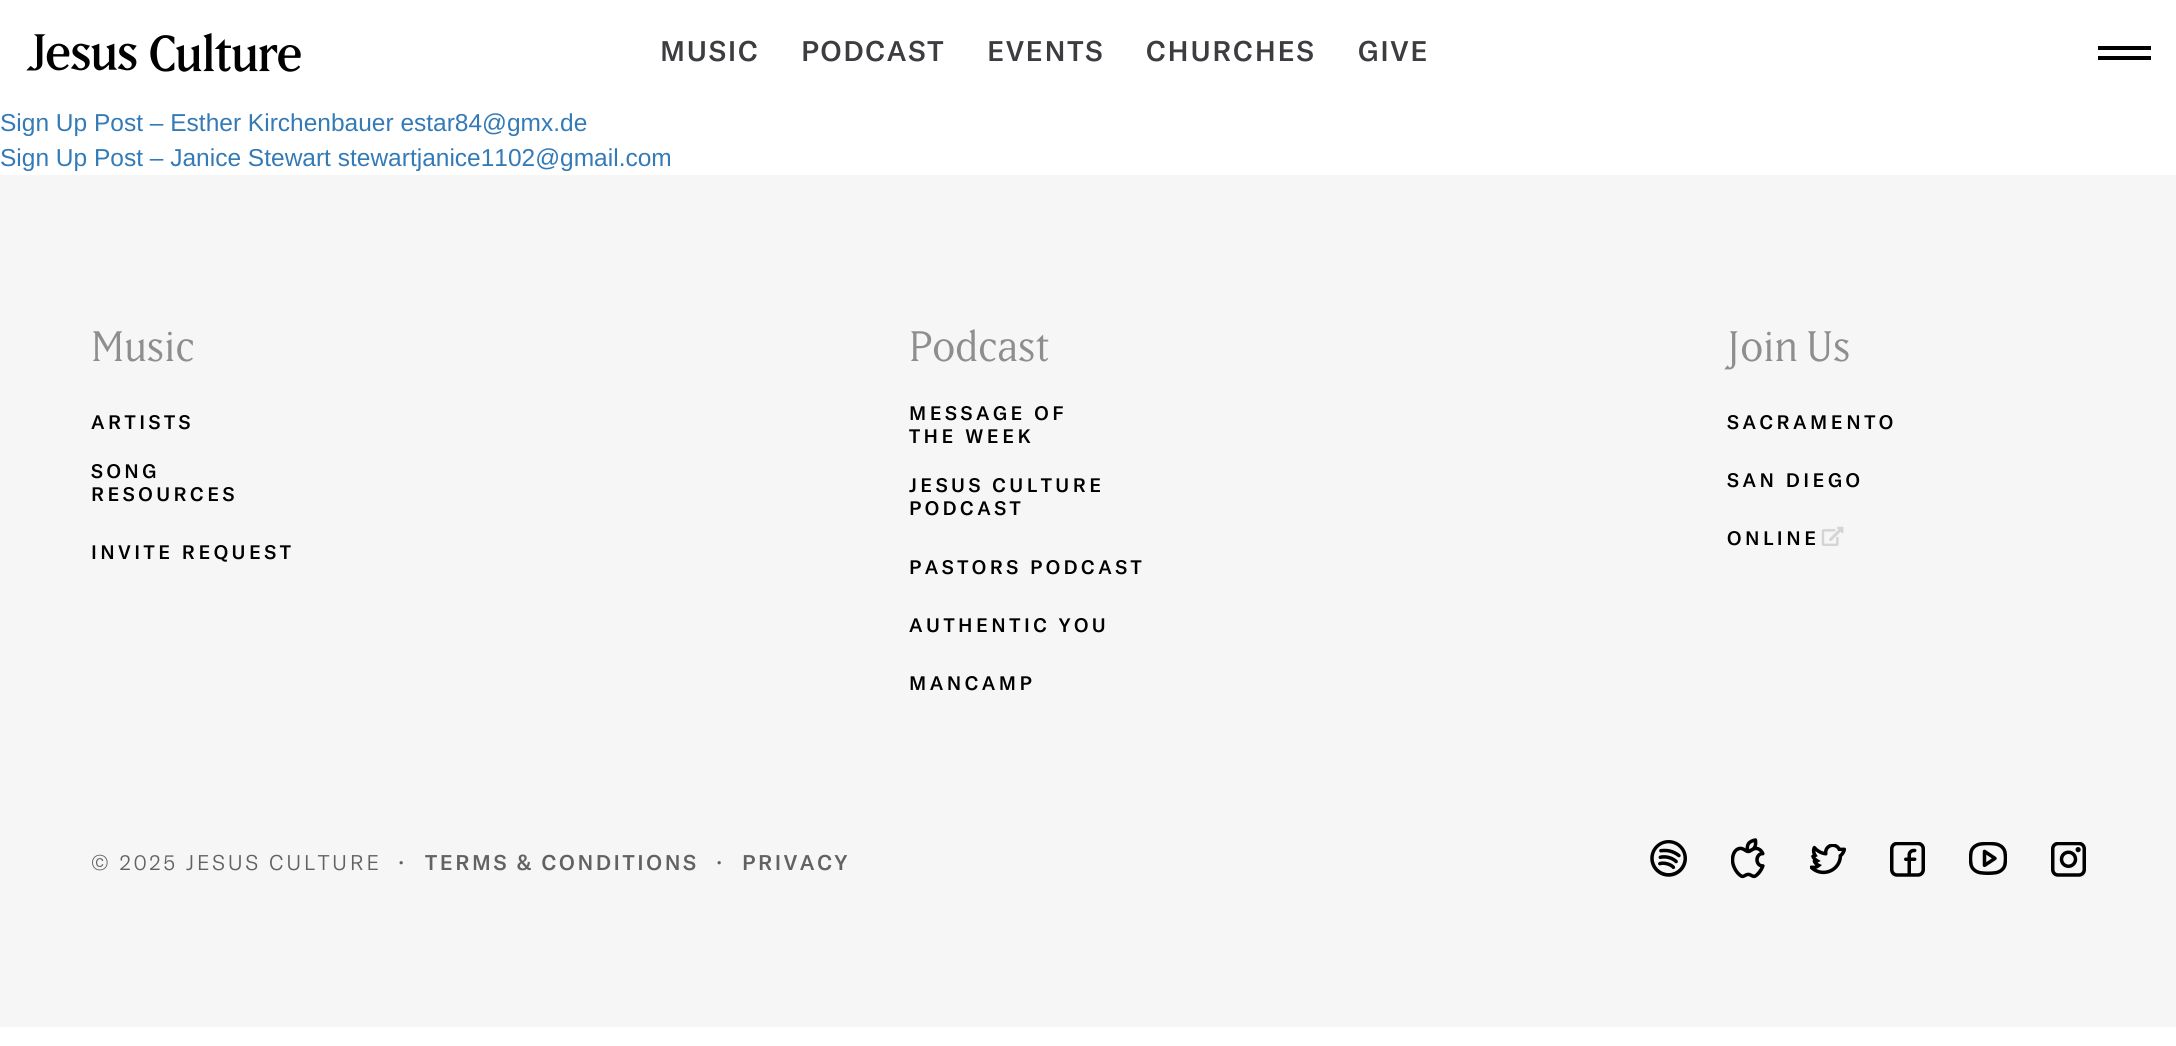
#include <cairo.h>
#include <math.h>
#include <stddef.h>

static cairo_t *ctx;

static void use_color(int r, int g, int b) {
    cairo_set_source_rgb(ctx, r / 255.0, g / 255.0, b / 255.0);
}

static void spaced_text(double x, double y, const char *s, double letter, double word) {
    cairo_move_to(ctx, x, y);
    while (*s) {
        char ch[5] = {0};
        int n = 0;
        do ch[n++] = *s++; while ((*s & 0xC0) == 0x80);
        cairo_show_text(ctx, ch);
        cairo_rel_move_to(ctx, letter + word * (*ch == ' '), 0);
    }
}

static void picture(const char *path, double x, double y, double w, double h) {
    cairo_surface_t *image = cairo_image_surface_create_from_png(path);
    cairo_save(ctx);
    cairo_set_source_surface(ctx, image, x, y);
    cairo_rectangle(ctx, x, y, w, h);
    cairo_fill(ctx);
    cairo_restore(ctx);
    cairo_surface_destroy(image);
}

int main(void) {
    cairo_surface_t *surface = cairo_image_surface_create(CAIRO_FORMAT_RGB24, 2176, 1046);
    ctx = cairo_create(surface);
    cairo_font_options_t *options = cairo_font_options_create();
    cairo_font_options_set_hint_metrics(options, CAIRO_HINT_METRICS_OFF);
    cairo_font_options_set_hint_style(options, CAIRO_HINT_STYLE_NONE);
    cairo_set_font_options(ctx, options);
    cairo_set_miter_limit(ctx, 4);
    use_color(255, 255, 255);
    cairo_paint(ctx);
    picture("img1.png", 26, 33, 275, 39);
    cairo_select_font_face(ctx, "GT America Medium", CAIRO_FONT_SLANT_NORMAL, CAIRO_FONT_WEIGHT_NORMAL);
    cairo_set_font_size(ctx, 28);
    use_color(60, 61, 65);
    spaced_text(660, 61, "MUSIC", 1.75, 0);
    spaced_text(801, 61, "PODCAST", 1.75, 0);
    spaced_text(987, 61, "EVENTS", 1.75, 0);
    spaced_text(1146, 61, "CHURCHES", 1.75, 0);
    spaced_text(1358, 61, "GIVE", 1.75, 0);
    use_color(0, 0, 0);
    cairo_rectangle(ctx, 2098, 46, 53, 4);
    cairo_fill(ctx);
    cairo_rectangle(ctx, 2098, 56, 53, 4);
    cairo_fill(ctx);
    cairo_select_font_face(ctx, "Liberation Sans", CAIRO_FONT_SLANT_NORMAL, CAIRO_FONT_WEIGHT_NORMAL);
    cairo_set_font_size(ctx, 24.5);
    use_color(51, 122, 183);
    cairo_move_to(ctx, 0, 131);
    cairo_show_text(ctx, "Sign Up Post – Esther Kirchenbauer estar84@gmx.de");
    cairo_move_to(ctx, 0, 166);
    cairo_show_text(ctx, "Sign Up Post – Janice Stewart stewartjanice1102@gmail.com");
    use_color(246, 246, 246);
    cairo_rectangle(ctx, 0, 175, 2176, 852);
    cairo_fill(ctx);
    cairo_select_font_face(ctx, "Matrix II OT", CAIRO_FONT_SLANT_NORMAL, CAIRO_FONT_WEIGHT_NORMAL);
    cairo_set_font_size(ctx, 42);
    use_color(142, 142, 142);
    cairo_move_to(ctx, 91, 361);
    cairo_show_text(ctx, "Music");
    cairo_select_font_face(ctx, "GT America Medium", CAIRO_FONT_SLANT_NORMAL, CAIRO_FONT_WEIGHT_NORMAL);
    cairo_set_font_size(ctx, 19.25);
    use_color(0, 0, 0);
    spaced_text(91, 429, "ARTISTS", 3.5, 0);
    spaced_text(91, 478, "SONG", 3.5, 0);
    spaced_text(91, 501, "RESOURCES", 3.5, 0);
    spaced_text(91, 559, "INVITE REQUEST", 3.5, 0);
    cairo_select_font_face(ctx, "Matrix II OT", CAIRO_FONT_SLANT_NORMAL, CAIRO_FONT_WEIGHT_NORMAL);
    cairo_set_font_size(ctx, 42);
    use_color(142, 142, 142);
    cairo_move_to(ctx, 909, 361);
    cairo_show_text(ctx, "Podcast");
    cairo_select_font_face(ctx, "GT America Medium", CAIRO_FONT_SLANT_NORMAL, CAIRO_FONT_WEIGHT_NORMAL);
    cairo_set_font_size(ctx, 19.25);
    use_color(0, 0, 0);
    spaced_text(909, 420, "MESSAGE OF", 3.5, 0);
    spaced_text(909, 443, "THE WEEK", 3.5, 0);
    spaced_text(909, 492, "JESUS CULTURE", 3.5, 0);
    spaced_text(909, 515, "PODCAST", 3.5, 0);
    spaced_text(909, 574, "PASTORS PODCAST", 3.5, 0);
    spaced_text(909, 632, "AUTHENTIC YOU", 3.5, 0);
    spaced_text(909, 690, "MANCAMP", 3.5, 0);
    cairo_select_font_face(ctx, "Matrix II OT", CAIRO_FONT_SLANT_NORMAL, CAIRO_FONT_WEIGHT_NORMAL);
    cairo_set_font_size(ctx, 42);
    use_color(142, 142, 142);
    cairo_move_to(ctx, 1727, 361);
    cairo_show_text(ctx, "Join Us");
    cairo_select_font_face(ctx, "GT America Medium", CAIRO_FONT_SLANT_NORMAL, CAIRO_FONT_WEIGHT_NORMAL);
    cairo_set_font_size(ctx, 19.25);
    use_color(0, 0, 0);
    spaced_text(1727, 429, "SACRAMENTO", 3.5, 0);
    spaced_text(1727, 487, "SAN DIEGO", 3.5, 0);
    spaced_text(1727, 545, "ONLINE", 3.5, 0);
    picture("img2.png", 1821, 526, 23, 20);
    cairo_select_font_face(ctx, "GT America Light", CAIRO_FONT_SLANT_NORMAL, CAIRO_FONT_WEIGHT_NORMAL);
    cairo_set_font_size(ctx, 21);
    use_color(98, 98, 98);
    spaced_text(91, 870, "© 2025 JESUS CULTURE  •", 2.6, 0);
    cairo_select_font_face(ctx, "GT America Medium", CAIRO_FONT_SLANT_NORMAL, CAIRO_FONT_WEIGHT_NORMAL);
    spaced_text(425, 870, "TERMS & CONDITIONS", 2.6, 0);
    cairo_select_font_face(ctx, "GT America Light", CAIRO_FONT_SLANT_NORMAL, CAIRO_FONT_WEIGHT_NORMAL);
    spaced_text(716, 870, "•", 2.6, 0);
    cairo_select_font_face(ctx, "GT America Medium", CAIRO_FONT_SLANT_NORMAL, CAIRO_FONT_WEIGHT_NORMAL);
    spaced_text(742, 870, "PRIVACY", 2.6, 0);
    picture("img3.png", 1650, 840, 37, 37);
    picture("img4.png", 1731, 838, 34, 41);
    picture("img5.png", 1810, 844, 36, 31);
    picture("img6.png", 1890, 842, 35, 35);
    picture("img7.png", 1969, 842, 38, 33);
    picture("img8.png", 2051, 842, 35, 35);
    cairo_surface_write_to_png(surface, "result.png");
    cairo_font_options_destroy(options);
    cairo_destroy(ctx);
    cairo_surface_destroy(surface);
    return 0;
}
